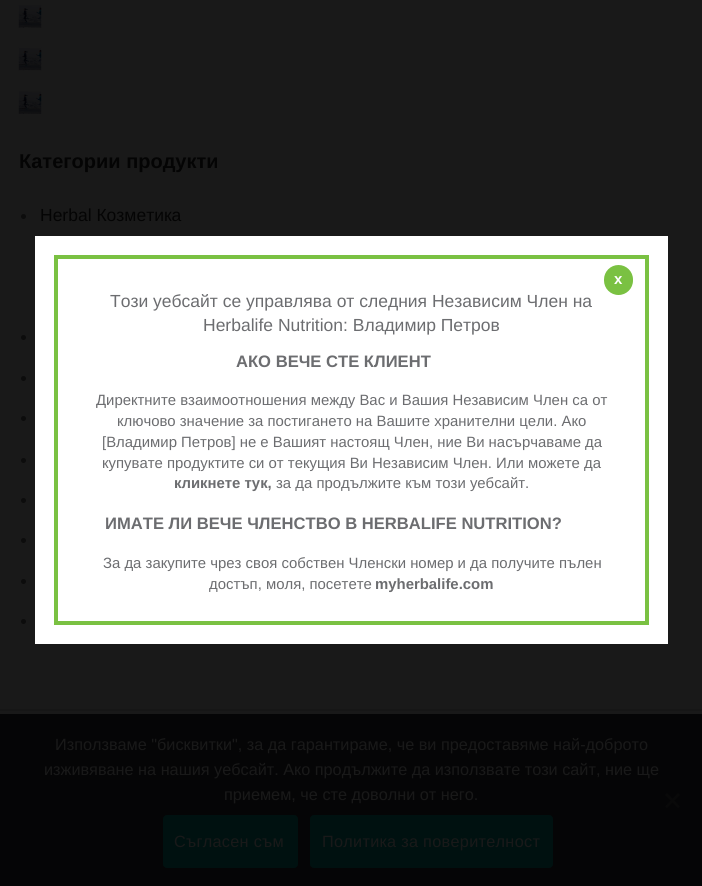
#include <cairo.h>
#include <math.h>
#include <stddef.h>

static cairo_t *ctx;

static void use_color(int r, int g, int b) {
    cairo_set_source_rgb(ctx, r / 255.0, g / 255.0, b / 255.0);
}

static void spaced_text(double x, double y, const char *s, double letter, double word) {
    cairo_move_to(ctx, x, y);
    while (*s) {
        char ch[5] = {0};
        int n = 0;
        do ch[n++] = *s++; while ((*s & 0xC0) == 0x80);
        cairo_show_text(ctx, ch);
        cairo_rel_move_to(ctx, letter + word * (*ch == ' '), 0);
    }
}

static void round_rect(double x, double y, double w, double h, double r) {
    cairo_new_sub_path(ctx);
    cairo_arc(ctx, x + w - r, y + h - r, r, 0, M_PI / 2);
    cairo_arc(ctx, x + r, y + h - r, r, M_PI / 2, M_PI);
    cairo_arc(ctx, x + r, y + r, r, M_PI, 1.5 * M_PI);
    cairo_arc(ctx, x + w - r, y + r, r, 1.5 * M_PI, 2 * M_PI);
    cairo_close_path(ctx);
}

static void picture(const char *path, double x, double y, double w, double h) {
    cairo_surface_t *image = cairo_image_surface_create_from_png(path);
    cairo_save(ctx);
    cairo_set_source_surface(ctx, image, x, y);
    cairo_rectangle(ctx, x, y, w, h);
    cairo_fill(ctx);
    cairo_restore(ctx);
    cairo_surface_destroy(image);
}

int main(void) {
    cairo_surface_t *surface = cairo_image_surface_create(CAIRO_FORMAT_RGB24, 702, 886);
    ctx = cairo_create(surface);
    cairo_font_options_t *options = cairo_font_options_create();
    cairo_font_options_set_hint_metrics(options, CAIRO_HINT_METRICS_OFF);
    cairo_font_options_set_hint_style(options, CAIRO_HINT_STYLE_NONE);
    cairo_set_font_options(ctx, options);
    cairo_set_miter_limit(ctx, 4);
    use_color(25, 25, 25);
    cairo_paint(ctx);
    picture("img1.png", 18, 5, 24, 23);
    picture("img2.png", 18, 47, 24, 24);
    picture("img3.png", 18, 91, 24, 23);
    cairo_select_font_face(ctx, "Liberation Sans", CAIRO_FONT_SLANT_NORMAL, CAIRO_FONT_WEIGHT_BOLD);
    cairo_set_font_size(ctx, 20);
    use_color(4, 4, 4);
    cairo_move_to(ctx, 19, 168);
    cairo_show_text(ctx, "Категории продукти");
    use_color(12, 12, 12);
    cairo_new_path(ctx);
    cairo_arc(ctx, 23.5, 216.5, 2.5, 0, 2 * M_PI);
    cairo_fill(ctx);
    cairo_select_font_face(ctx, "Liberation Sans", CAIRO_FONT_SLANT_NORMAL, CAIRO_FONT_WEIGHT_NORMAL);
    cairo_set_font_size(ctx, 17.5);
    use_color(4, 4, 4);
    cairo_move_to(ctx, 40, 221);
    cairo_show_text(ctx, "Herbal Козметика");
    use_color(12, 12, 12);
    cairo_new_path(ctx);
    cairo_arc(ctx, 23.5, 337.5, 2.5, 0, 2 * M_PI);
    cairo_fill(ctx);
    cairo_arc(ctx, 23.5, 378.5, 2.5, 0, 2 * M_PI);
    cairo_fill(ctx);
    cairo_arc(ctx, 23.5, 418.5, 2.5, 0, 2 * M_PI);
    cairo_fill(ctx);
    cairo_arc(ctx, 23.5, 460.5, 2.5, 0, 2 * M_PI);
    cairo_fill(ctx);
    cairo_arc(ctx, 23.5, 500.5, 2.5, 0, 2 * M_PI);
    cairo_fill(ctx);
    cairo_arc(ctx, 23.5, 540.5, 2.5, 0, 2 * M_PI);
    cairo_fill(ctx);
    cairo_arc(ctx, 23.5, 581.5, 2.5, 0, 2 * M_PI);
    cairo_fill(ctx);
    cairo_arc(ctx, 23.5, 621.5, 2.5, 0, 2 * M_PI);
    cairo_fill(ctx);
    use_color(22, 22, 22);
    cairo_rectangle(ctx, 0, 709, 702, 2);
    cairo_fill(ctx);
    use_color(255, 255, 255);
    cairo_rectangle(ctx, 35, 236, 633, 408);
    cairo_fill(ctx);
    cairo_rectangle(ctx, 56, 257, 591, 366);
    use_color(122, 193, 66);
    cairo_set_line_width(ctx, 4);
    cairo_stroke(ctx);
    round_rect(604, 265, 29, 30, 14.5);
    cairo_fill(ctx);
    cairo_select_font_face(ctx, "Liberation Sans", CAIRO_FONT_SLANT_NORMAL, CAIRO_FONT_WEIGHT_BOLD);
    cairo_set_font_size(ctx, 15);
    use_color(255, 255, 255);
    cairo_move_to(ctx, 614, 284);
    cairo_show_text(ctx, "x");
    cairo_select_font_face(ctx, "Liberation Sans", CAIRO_FONT_SLANT_NORMAL, CAIRO_FONT_WEIGHT_NORMAL);
    cairo_set_font_size(ctx, 17.5);
    use_color(108, 109, 112);
    cairo_move_to(ctx, 110, 307);
    cairo_show_text(ctx, "Този уебсайт се управлява от следния Независим Член на");
    cairo_move_to(ctx, 203, 331);
    cairo_show_text(ctx, "Herbalife Nutrition: Владимир Петров");
    cairo_select_font_face(ctx, "Liberation Sans", CAIRO_FONT_SLANT_NORMAL, CAIRO_FONT_WEIGHT_BOLD);
    cairo_set_font_size(ctx, 16.6);
    cairo_move_to(ctx, 236, 367);
    cairo_show_text(ctx, "АКО ВЕЧЕ СТЕ КЛИЕНТ");
    cairo_select_font_face(ctx, "Liberation Sans", CAIRO_FONT_SLANT_NORMAL, CAIRO_FONT_WEIGHT_NORMAL);
    cairo_set_font_size(ctx, 14.9);
    cairo_move_to(ctx, 96, 405);
    cairo_show_text(ctx, "Директните взаимоотношения между Вас и Вашия Независим Член са от");
    cairo_move_to(ctx, 117, 426);
    cairo_show_text(ctx, "ключово значение за постигането на Вашите хранителни цели. Ако");
    cairo_move_to(ctx, 102, 447);
    cairo_show_text(ctx, "[Владимир Петров] не е Вашият настоящ Член, ние Ви насърчаваме да");
    cairo_move_to(ctx, 102, 468);
    cairo_show_text(ctx, "купувате продуктите си от текущия Ви Независим Член. Или можете да");
    cairo_select_font_face(ctx, "Liberation Sans", CAIRO_FONT_SLANT_NORMAL, CAIRO_FONT_WEIGHT_BOLD);
    cairo_move_to(ctx, 174, 488);
    cairo_show_text(ctx, "кликнете тук,");
    cairo_select_font_face(ctx, "Liberation Sans", CAIRO_FONT_SLANT_NORMAL, CAIRO_FONT_WEIGHT_NORMAL);
    cairo_move_to(ctx, 276, 488);
    cairo_show_text(ctx, "за да продължите към този уебсайт.");
    cairo_select_font_face(ctx, "Liberation Sans", CAIRO_FONT_SLANT_NORMAL, CAIRO_FONT_WEIGHT_BOLD);
    cairo_set_font_size(ctx, 16.6);
    cairo_move_to(ctx, 105, 529);
    cairo_show_text(ctx, "ИМАТЕ ЛИ ВЕЧЕ ЧЛЕНСТВО В HERBALIFE NUTRITION?");
    cairo_select_font_face(ctx, "Liberation Sans", CAIRO_FONT_SLANT_NORMAL, CAIRO_FONT_WEIGHT_NORMAL);
    cairo_set_font_size(ctx, 14.9);
    cairo_move_to(ctx, 103, 568);
    cairo_show_text(ctx, "За да закупите чрез своя собствен Членски номер и да получите пълен");
    cairo_move_to(ctx, 209, 589);
    cairo_show_text(ctx, "достъп, моля, посетете");
    cairo_select_font_face(ctx, "Liberation Sans", CAIRO_FONT_SLANT_NORMAL, CAIRO_FONT_WEIGHT_BOLD);
    cairo_move_to(ctx, 375, 589);
    cairo_show_text(ctx, "myherbalife.com");
    use_color(5, 5, 6);
    cairo_rectangle(ctx, 0, 714, 702, 172);
    cairo_fill(ctx);
    cairo_select_font_face(ctx, "Liberation Sans", CAIRO_FONT_SLANT_NORMAL, CAIRO_FONT_WEIGHT_NORMAL);
    cairo_set_font_size(ctx, 16.25);
    use_color(25, 25, 25);
    cairo_move_to(ctx, 55, 750);
    cairo_show_text(ctx, "Използваме \"бисквитки\", за да гарантираме, че ви предоставяме най-доброто");
    cairo_move_to(ctx, 44, 775);
    cairo_show_text(ctx, "изживяване на нашия уебсайт. Ако продължите да използвате този сайт, ние ще");
    cairo_move_to(ctx, 224, 800);
    cairo_show_text(ctx, "приемем, че сте доволни от него.");
    use_color(9, 9, 9);
    cairo_new_path(ctx);
    cairo_move_to(ctx, 678, 793);
    cairo_line_to(ctx, 680, 795);
    cairo_line_to(ctx, 667, 808);
    cairo_line_to(ctx, 665, 806.5);
    cairo_close_path(ctx);
    cairo_fill(ctx);
    cairo_new_path(ctx);
    cairo_move_to(ctx, 665, 795);
    cairo_line_to(ctx, 667, 793);
    cairo_line_to(ctx, 680, 806.5);
    cairo_line_to(ctx, 678, 808);
    cairo_close_path(ctx);
    cairo_fill(ctx);
    use_color(0, 17, 16);
    round_rect(163, 815, 135, 53, 4);
    cairo_fill(ctx);
    use_color(25, 25, 25);
    spaced_text(174, 847, "Съгласен съм", 0.3, 0);
    use_color(0, 17, 16);
    round_rect(310, 815, 243, 53, 4);
    cairo_fill(ctx);
    use_color(25, 25, 25);
    spaced_text(322, 847, "Политика за поверителност", 0.3, 0);
    cairo_surface_write_to_png(surface, "result.png");
    cairo_font_options_destroy(options);
    cairo_destroy(ctx);
    cairo_surface_destroy(surface);
    return 0;
}
